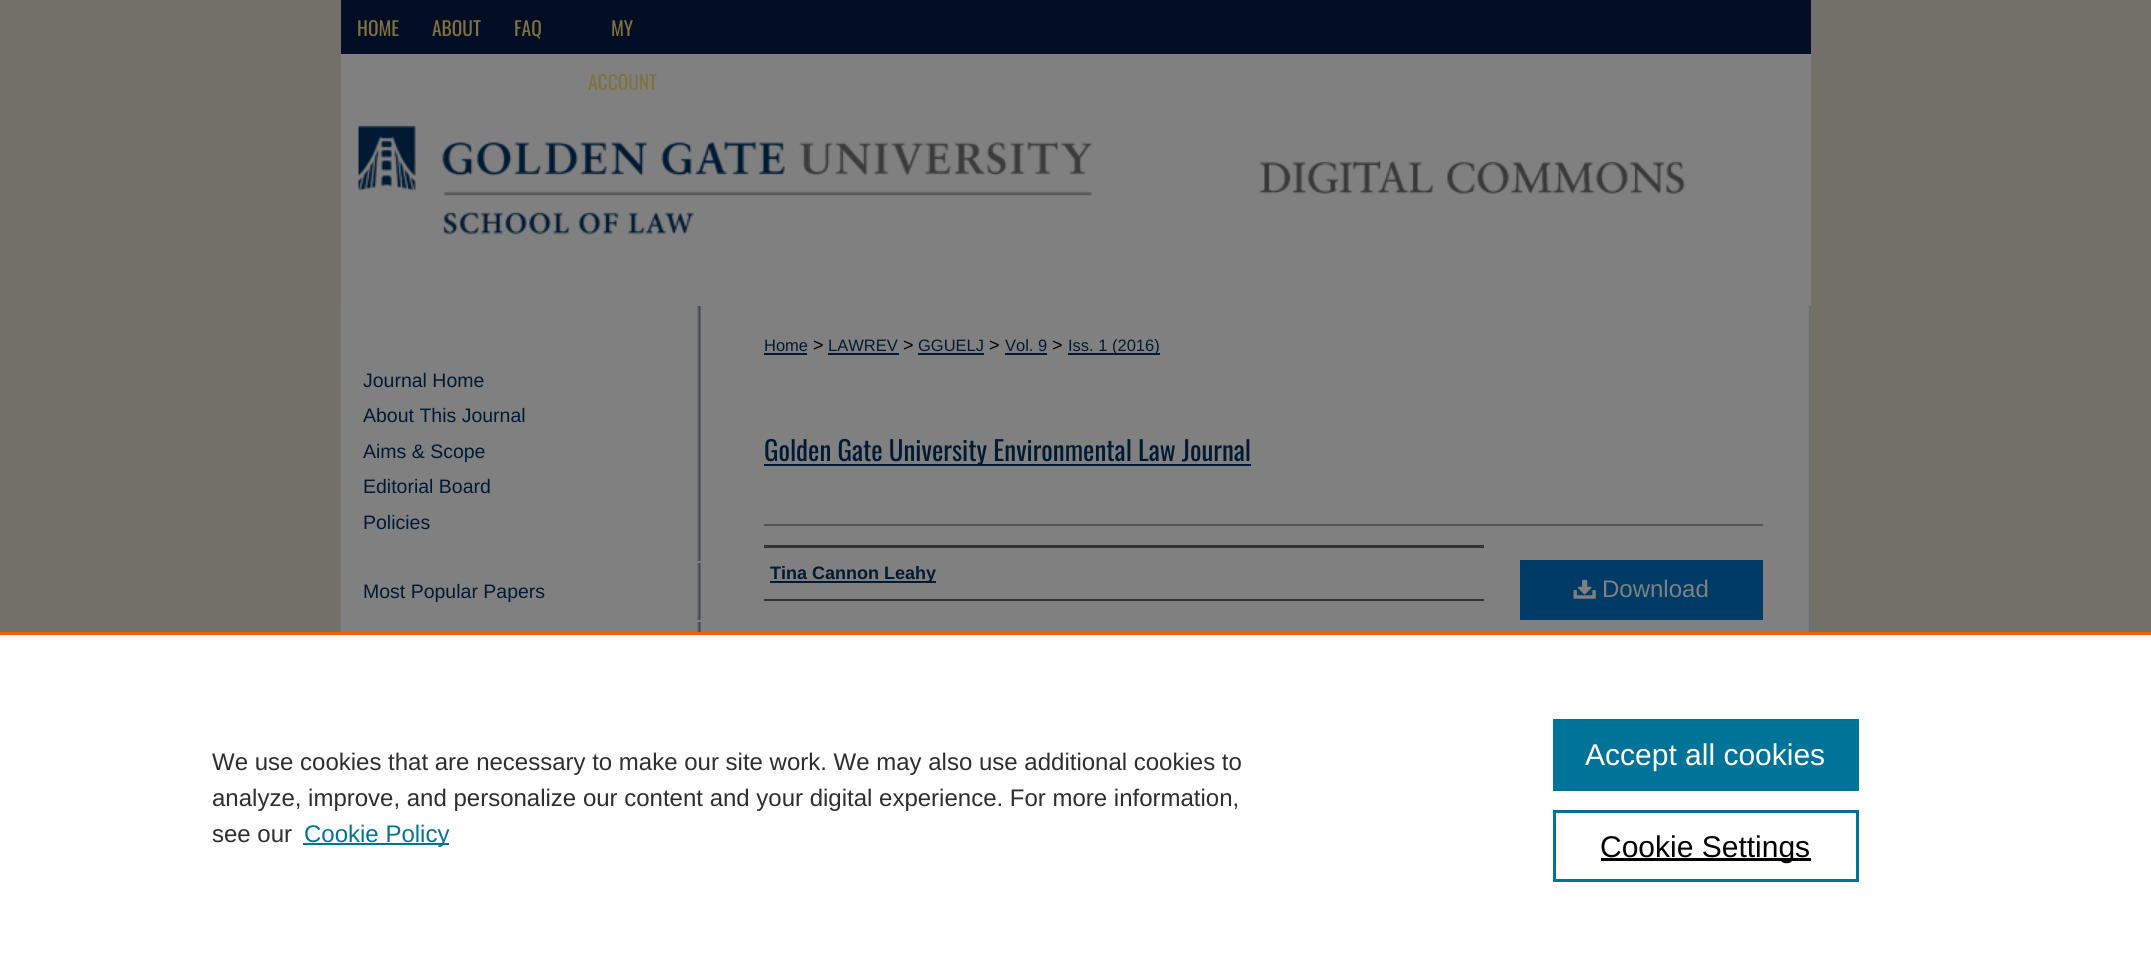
#include <cairo.h>
#include <math.h>
#include <stddef.h>

static cairo_t *ctx;

static void use_color(int r, int g, int b) {
    cairo_set_source_rgb(ctx, r / 255.0, g / 255.0, b / 255.0);
}

static void picture(const char *path, double x, double y, double w, double h) {
    cairo_surface_t *image = cairo_image_surface_create_from_png(path);
    cairo_save(ctx);
    cairo_set_source_surface(ctx, image, x, y);
    cairo_rectangle(ctx, x, y, w, h);
    cairo_fill(ctx);
    cairo_restore(ctx);
    cairo_surface_destroy(image);
}

int main(void) {
    cairo_surface_t *surface = cairo_image_surface_create(CAIRO_FORMAT_RGB24, 2151, 961);
    ctx = cairo_create(surface);
    cairo_font_options_t *options = cairo_font_options_create();
    cairo_font_options_set_hint_metrics(options, CAIRO_HINT_METRICS_OFF);
    cairo_font_options_set_hint_style(options, CAIRO_HINT_STYLE_NONE);
    cairo_set_font_options(ctx, options);
    cairo_set_miter_limit(ctx, 4);
    use_color(115, 112, 105);
    cairo_paint(ctx);
    use_color(2, 14, 36);
    cairo_rectangle(ctx, 341, 0, 1470, 54);
    cairo_fill(ctx);
    cairo_select_font_face(ctx, "Oswald", CAIRO_FONT_SLANT_NORMAL, CAIRO_FONT_WEIGHT_NORMAL);
    cairo_set_font_size(ctx, 19.5);
    use_color(128, 113, 63);
    cairo_move_to(ctx, 357, 36);
    cairo_show_text(ctx, "HOME");
    cairo_move_to(ctx, 432, 36);
    cairo_show_text(ctx, "ABOUT");
    cairo_move_to(ctx, 514, 36);
    cairo_show_text(ctx, "FAQ");
    cairo_move_to(ctx, 611, 36);
    cairo_show_text(ctx, "MY");
    use_color(128, 128, 128);
    cairo_rectangle(ctx, 341, 54, 1470, 252);
    cairo_fill(ctx);
    use_color(128, 113, 63);
    cairo_move_to(ctx, 588, 90);
    cairo_show_text(ctx, "ACCOUNT");
    picture("img1.png", 358, 125, 1327, 110);
    use_color(118, 117, 112);
    cairo_rectangle(ctx, 1810, 306, 1, 326);
    cairo_fill(ctx);
    picture("img2.png", 340, 306, 1471, 326);
    cairo_select_font_face(ctx, "Liberation Sans", CAIRO_FONT_SLANT_NORMAL, CAIRO_FONT_WEIGHT_NORMAL);
    use_color(0, 26, 52);
    cairo_move_to(ctx, 363, 387);
    cairo_show_text(ctx, "Journal Home");
    cairo_move_to(ctx, 363, 422);
    cairo_show_text(ctx, "About This Journal");
    cairo_move_to(ctx, 363, 458);
    cairo_show_text(ctx, "Aims & Scope");
    cairo_move_to(ctx, 363, 493);
    cairo_show_text(ctx, "Editorial Board");
    cairo_move_to(ctx, 363, 529);
    cairo_show_text(ctx, "Policies");
    use_color(128, 128, 128);
    cairo_rectangle(ctx, 697, 561, 4, 2);
    cairo_fill(ctx);
    cairo_rectangle(ctx, 697, 620, 4, 2);
    cairo_fill(ctx);
    use_color(0, 26, 52);
    cairo_move_to(ctx, 363, 598);
    cairo_show_text(ctx, "Most Popular Papers");
    cairo_set_font_size(ctx, 16.5);
    cairo_move_to(ctx, 764, 351);
    cairo_show_text(ctx, "Home");
    cairo_rectangle(ctx, 764, 353, 43, 2);
    cairo_fill(ctx);
    cairo_set_font_size(ctx, 18);
    use_color(0, 0, 0);
    cairo_move_to(ctx, 813, 351);
    cairo_show_text(ctx, ">");
    cairo_set_font_size(ctx, 16.5);
    use_color(0, 26, 52);
    cairo_move_to(ctx, 828, 351);
    cairo_show_text(ctx, "LAWREV");
    cairo_rectangle(ctx, 828, 353, 71, 2);
    cairo_fill(ctx);
    cairo_set_font_size(ctx, 18);
    use_color(0, 0, 0);
    cairo_move_to(ctx, 903, 351);
    cairo_show_text(ctx, ">");
    cairo_set_font_size(ctx, 16.5);
    use_color(0, 26, 52);
    cairo_move_to(ctx, 918, 351);
    cairo_show_text(ctx, "GGUELJ");
    cairo_rectangle(ctx, 918, 353, 66, 2);
    cairo_fill(ctx);
    cairo_set_font_size(ctx, 18);
    use_color(0, 0, 0);
    cairo_move_to(ctx, 989, 351);
    cairo_show_text(ctx, ">");
    cairo_set_font_size(ctx, 16.5);
    use_color(0, 26, 52);
    cairo_move_to(ctx, 1005, 351);
    cairo_show_text(ctx, "Vol. 9");
    cairo_rectangle(ctx, 1005, 353, 42, 2);
    cairo_fill(ctx);
    cairo_set_font_size(ctx, 18);
    use_color(0, 0, 0);
    cairo_move_to(ctx, 1052, 351);
    cairo_show_text(ctx, ">");
    use_color(0, 26, 52);
    cairo_rectangle(ctx, 1068, 353, 92, 2);
    cairo_fill(ctx);
    cairo_set_font_size(ctx, 16.5);
    cairo_move_to(ctx, 1068, 351);
    cairo_show_text(ctx, "Iss. 1 (2016)");
    cairo_rectangle(ctx, 764, 464, 487, 2);
    cairo_fill(ctx);
    cairo_select_font_face(ctx, "Oswald", CAIRO_FONT_SLANT_NORMAL, CAIRO_FONT_WEIGHT_NORMAL);
    cairo_set_font_size(ctx, 27);
    cairo_move_to(ctx, 764, 461);
    cairo_show_text(ctx, "Golden Gate University Environmental Law Journal");
    use_color(85, 85, 85);
    cairo_rectangle(ctx, 764, 524, 999, 2);
    cairo_fill(ctx);
    use_color(51, 51, 51);
    cairo_rectangle(ctx, 764, 545, 720, 3);
    cairo_fill(ctx);
    cairo_rectangle(ctx, 764, 599, 720, 2);
    cairo_fill(ctx);
    use_color(0, 26, 52);
    cairo_rectangle(ctx, 770, 581, 166, 2);
    cairo_fill(ctx);
    cairo_select_font_face(ctx, "Liberation Sans", CAIRO_FONT_SLANT_NORMAL, CAIRO_FONT_WEIGHT_BOLD);
    cairo_set_font_size(ctx, 18);
    cairo_move_to(ctx, 770, 579);
    cairo_show_text(ctx, "Tina Cannon Leahy");
    use_color(0, 58, 102);
    cairo_rectangle(ctx, 1520, 560, 243, 60);
    cairo_fill(ctx);
    picture("img3.png", 1573, 579, 23, 20);
    cairo_select_font_face(ctx, "Liberation Sans", CAIRO_FONT_SLANT_NORMAL, CAIRO_FONT_WEIGHT_NORMAL);
    cairo_set_font_size(ctx, 24);
    use_color(128, 128, 128);
    cairo_move_to(ctx, 1602, 597);
    cairo_show_text(ctx, "Download");
    use_color(255, 255, 255);
    cairo_rectangle(ctx, 0, 635, 2151, 326);
    cairo_fill(ctx);
    use_color(235, 101, 0);
    cairo_rectangle(ctx, 0, 632, 2151, 3);
    cairo_fill(ctx);
    use_color(46, 46, 46);
    cairo_move_to(ctx, 212, 770);
    cairo_show_text(ctx, "We use cookies that are necessary to make our site work. We may also use additional cookies to");
    cairo_move_to(ctx, 212, 806);
    cairo_show_text(ctx, "analyze, improve, and personalize our content and your digital experience. For more information,");
    cairo_move_to(ctx, 212, 842);
    cairo_show_text(ctx, "see our");
    use_color(0, 115, 152);
    cairo_rectangle(ctx, 303, 843, 146, 2);
    cairo_fill(ctx);
    cairo_move_to(ctx, 304, 842);
    cairo_show_text(ctx, "Cookie Policy");
    cairo_rectangle(ctx, 1553, 719, 306, 72);
    cairo_fill(ctx);
    cairo_set_font_size(ctx, 30);
    use_color(255, 255, 255);
    cairo_move_to(ctx, 1585, 765);
    cairo_show_text(ctx, "Accept all cookies");
    cairo_rectangle(ctx, 1554.5, 811.5, 303, 69);
    use_color(0, 115, 152);
    cairo_set_line_width(ctx, 3);
    cairo_stroke(ctx);
    use_color(0, 0, 0);
    cairo_rectangle(ctx, 1601, 858, 210, 3);
    cairo_fill(ctx);
    cairo_move_to(ctx, 1600, 857);
    cairo_show_text(ctx, "Cookie Settings");
    cairo_surface_write_to_png(surface, "result.png");
    cairo_font_options_destroy(options);
    cairo_destroy(ctx);
    cairo_surface_destroy(surface);
    return 0;
}
